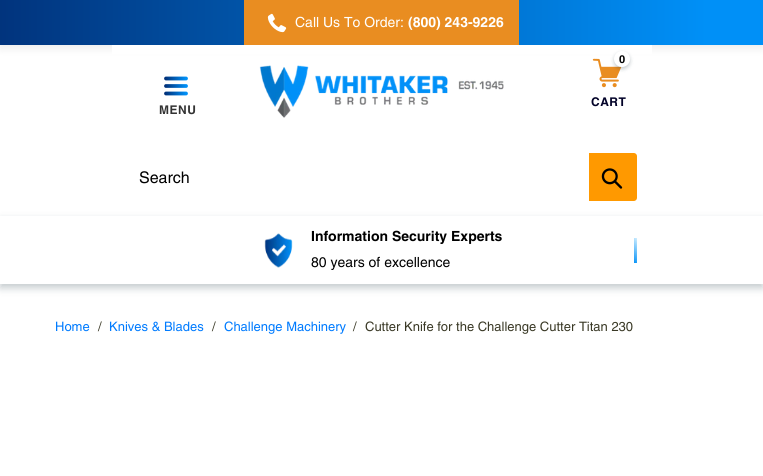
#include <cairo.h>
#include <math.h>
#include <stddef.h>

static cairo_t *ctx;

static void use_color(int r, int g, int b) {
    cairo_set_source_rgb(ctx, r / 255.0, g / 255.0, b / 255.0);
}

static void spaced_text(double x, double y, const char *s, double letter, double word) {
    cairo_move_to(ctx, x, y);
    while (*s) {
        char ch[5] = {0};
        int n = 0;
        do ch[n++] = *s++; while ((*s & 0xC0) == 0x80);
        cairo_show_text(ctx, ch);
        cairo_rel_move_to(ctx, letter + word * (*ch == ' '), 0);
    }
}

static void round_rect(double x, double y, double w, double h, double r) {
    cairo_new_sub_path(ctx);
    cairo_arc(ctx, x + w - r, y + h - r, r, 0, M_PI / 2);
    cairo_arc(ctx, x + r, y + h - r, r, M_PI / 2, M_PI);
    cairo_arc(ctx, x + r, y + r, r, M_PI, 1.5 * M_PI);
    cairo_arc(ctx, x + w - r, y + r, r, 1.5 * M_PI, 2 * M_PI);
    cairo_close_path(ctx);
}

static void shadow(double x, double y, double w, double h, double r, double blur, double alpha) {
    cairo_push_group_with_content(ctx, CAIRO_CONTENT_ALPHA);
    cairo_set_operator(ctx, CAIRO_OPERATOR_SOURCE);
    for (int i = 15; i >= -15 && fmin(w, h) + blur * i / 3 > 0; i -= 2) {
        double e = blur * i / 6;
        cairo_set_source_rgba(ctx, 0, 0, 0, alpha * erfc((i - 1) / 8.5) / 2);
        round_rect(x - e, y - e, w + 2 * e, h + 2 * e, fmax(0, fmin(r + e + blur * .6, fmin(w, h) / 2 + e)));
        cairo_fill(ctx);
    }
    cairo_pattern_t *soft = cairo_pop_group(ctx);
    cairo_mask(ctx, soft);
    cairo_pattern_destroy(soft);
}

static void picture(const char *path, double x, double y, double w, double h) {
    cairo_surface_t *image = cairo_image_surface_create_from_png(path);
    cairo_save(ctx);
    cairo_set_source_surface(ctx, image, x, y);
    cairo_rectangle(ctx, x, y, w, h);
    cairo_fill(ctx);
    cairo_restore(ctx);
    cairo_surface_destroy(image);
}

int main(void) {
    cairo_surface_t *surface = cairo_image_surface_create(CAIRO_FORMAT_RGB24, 763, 476);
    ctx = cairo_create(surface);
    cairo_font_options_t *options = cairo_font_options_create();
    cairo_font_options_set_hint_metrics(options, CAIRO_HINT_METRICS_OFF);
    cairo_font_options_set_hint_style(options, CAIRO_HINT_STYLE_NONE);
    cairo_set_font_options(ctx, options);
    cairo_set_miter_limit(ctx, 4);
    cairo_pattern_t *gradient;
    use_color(255, 255, 255);
    cairo_paint(ctx);
    use_color(0, 0, 0);
    shadow(0, 3, 763, 45, 0, 5, 0.08);
    gradient = cairo_pattern_create_linear(-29, 22, 763, 23);
    cairo_pattern_add_color_stop_rgba(gradient, 0, 0.004, 0.188, 0.471, 1);
    cairo_pattern_add_color_stop_rgba(gradient, 0.93, 0, 0.565, 0.969, 1);
    cairo_set_source(ctx, gradient);
    cairo_pattern_destroy(gradient);
    cairo_rectangle(ctx, 0, 0, 763, 45);
    cairo_fill(ctx);
    use_color(233, 141, 33);
    cairo_rectangle(ctx, 244, 0, 275, 45);
    cairo_fill(ctx);
    picture("img1.png", 267, 13, 20, 20);
    cairo_select_font_face(ctx, "Helvetica", CAIRO_FONT_SLANT_NORMAL, CAIRO_FONT_WEIGHT_NORMAL);
    cairo_set_font_size(ctx, 14);
    use_color(255, 255, 255);
    cairo_move_to(ctx, 295, 27);
    cairo_show_text(ctx, "Call Us To Order:");
    cairo_select_font_face(ctx, "Helvetica", CAIRO_FONT_SLANT_NORMAL, CAIRO_FONT_WEIGHT_BOLD);
    cairo_move_to(ctx, 408, 27);
    cairo_show_text(ctx, "(800) 243-9226");
    cairo_rectangle(ctx, 112, 45, 540, 9);
    cairo_fill(ctx);
    cairo_new_path(ctx);
    cairo_move_to(ctx, 166, 93.5);
    cairo_line_to(ctx, 186, 93.5);
    cairo_move_to(ctx, 166, 78.5);
    cairo_line_to(ctx, 186, 78.5);
    cairo_close_path(ctx);
    cairo_move_to(ctx, 166, 86);
    cairo_line_to(ctx, 186, 86);
    cairo_close_path(ctx);
    gradient = cairo_pattern_create_linear(165, 89, 186, 89);
    cairo_pattern_add_color_stop_rgba(gradient, 0, 0.004, 0.188, 0.471, 1);
    cairo_pattern_add_color_stop_rgba(gradient, 1, 0, 0.565, 0.969, 1);
    cairo_set_source(ctx, gradient);
    cairo_pattern_destroy(gradient);
    cairo_set_line_width(ctx, 3.8);
    cairo_set_line_cap(ctx, CAIRO_LINE_CAP_ROUND);
    cairo_set_line_join(ctx, CAIRO_LINE_JOIN_ROUND);
    cairo_stroke(ctx);
    cairo_set_font_size(ctx, 12);
    use_color(51, 51, 51);
    spaced_text(159, 114, "MENU", 0.5, 0);
    picture("img2.png", 259, 65, 245, 53);
    picture("img3.png", 592, 58, 30, 30);
    use_color(8, 35, 48);
    shadow(614, 53, 16, 16, 8, 2, 0.24);
    use_color(255, 255, 255);
    cairo_arc(ctx, 622, 59, 8, 0, 2 * M_PI);
    cairo_fill(ctx);
    cairo_set_font_size(ctx, 11);
    use_color(0, 0, 0);
    cairo_move_to(ctx, 619, 63);
    cairo_show_text(ctx, "0");
    cairo_set_font_size(ctx, 12);
    use_color(2, 2, 40);
    spaced_text(591, 106, "CART", 0.5, 0);
    cairo_select_font_face(ctx, "Helvetica", CAIRO_FONT_SLANT_NORMAL, CAIRO_FONT_WEIGHT_NORMAL);
    cairo_set_font_size(ctx, 16);
    use_color(0, 0, 0);
    cairo_move_to(ctx, 139, 183);
    cairo_show_text(ctx, "Search");
    use_color(255, 153, 0);
    cairo_new_path(ctx);
    cairo_move_to(ctx, 589, 153);
    cairo_line_to(ctx, 634, 153);
    cairo_curve_to(ctx, 635.5, 153, 637, 154.5, 637, 156);
    cairo_line_to(ctx, 637, 198);
    cairo_curve_to(ctx, 637, 199.5, 635.5, 201, 634, 201);
    cairo_line_to(ctx, 589, 201);
    cairo_close_path(ctx);
    cairo_fill(ctx);
    picture("img4.png", 601, 168, 22, 21);
    use_color(8, 35, 48);
    shadow(0, 220, 763, 68, 0, 4, 0.24);
    use_color(255, 255, 255);
    cairo_rectangle(ctx, 0, 216, 763, 68);
    cairo_fill(ctx);
    picture("img5.png", 264, 233, 29, 35);
    cairo_select_font_face(ctx, "Helvetica", CAIRO_FONT_SLANT_NORMAL, CAIRO_FONT_WEIGHT_BOLD);
    cairo_set_font_size(ctx, 14);
    use_color(0, 0, 0);
    cairo_move_to(ctx, 311, 241);
    cairo_show_text(ctx, "Information Security Experts");
    cairo_select_font_face(ctx, "Helvetica", CAIRO_FONT_SLANT_NORMAL, CAIRO_FONT_WEIGHT_NORMAL);
    cairo_move_to(ctx, 311, 267);
    cairo_show_text(ctx, "80 years of excellence");
    gradient = cairo_pattern_create_linear(643, 244, 628, 257);
    cairo_pattern_add_color_stop_rgba(gradient, 0, 0.843, 0.945, 1, 1);
    cairo_pattern_add_color_stop_rgba(gradient, 1, 0, 0.565, 0.969, 1);
    cairo_set_source(ctx, gradient);
    cairo_pattern_destroy(gradient);
    cairo_rectangle(ctx, 634, 238, 3, 25);
    cairo_fill(ctx);
    cairo_set_font_size(ctx, 13);
    use_color(0, 123, 255);
    cairo_move_to(ctx, 55, 331);
    cairo_show_text(ctx, "Home");
    use_color(58, 57, 38);
    cairo_move_to(ctx, 98, 331);
    cairo_show_text(ctx, "/");
    use_color(0, 123, 255);
    cairo_move_to(ctx, 109, 331);
    cairo_show_text(ctx, "Knives & Blades");
    use_color(58, 57, 38);
    cairo_move_to(ctx, 212, 331);
    cairo_show_text(ctx, "/");
    use_color(0, 123, 255);
    cairo_move_to(ctx, 224, 331);
    cairo_show_text(ctx, "Challenge Machinery");
    use_color(58, 57, 38);
    cairo_move_to(ctx, 353, 331);
    cairo_show_text(ctx, "/");
    cairo_move_to(ctx, 365, 331);
    cairo_show_text(ctx, "Cutter Knife for the Challenge Cutter Titan 230");
    cairo_surface_write_to_png(surface, "result.png");
    cairo_font_options_destroy(options);
    cairo_destroy(ctx);
    cairo_surface_destroy(surface);
    return 0;
}
